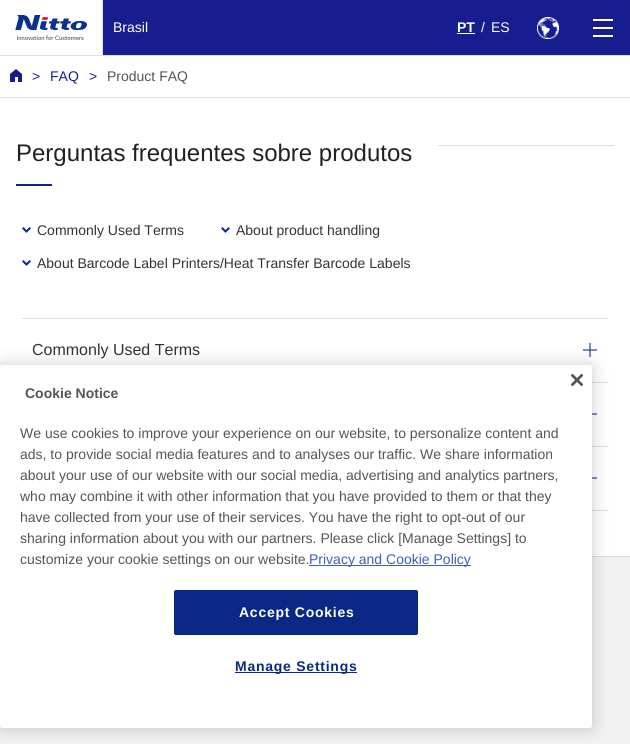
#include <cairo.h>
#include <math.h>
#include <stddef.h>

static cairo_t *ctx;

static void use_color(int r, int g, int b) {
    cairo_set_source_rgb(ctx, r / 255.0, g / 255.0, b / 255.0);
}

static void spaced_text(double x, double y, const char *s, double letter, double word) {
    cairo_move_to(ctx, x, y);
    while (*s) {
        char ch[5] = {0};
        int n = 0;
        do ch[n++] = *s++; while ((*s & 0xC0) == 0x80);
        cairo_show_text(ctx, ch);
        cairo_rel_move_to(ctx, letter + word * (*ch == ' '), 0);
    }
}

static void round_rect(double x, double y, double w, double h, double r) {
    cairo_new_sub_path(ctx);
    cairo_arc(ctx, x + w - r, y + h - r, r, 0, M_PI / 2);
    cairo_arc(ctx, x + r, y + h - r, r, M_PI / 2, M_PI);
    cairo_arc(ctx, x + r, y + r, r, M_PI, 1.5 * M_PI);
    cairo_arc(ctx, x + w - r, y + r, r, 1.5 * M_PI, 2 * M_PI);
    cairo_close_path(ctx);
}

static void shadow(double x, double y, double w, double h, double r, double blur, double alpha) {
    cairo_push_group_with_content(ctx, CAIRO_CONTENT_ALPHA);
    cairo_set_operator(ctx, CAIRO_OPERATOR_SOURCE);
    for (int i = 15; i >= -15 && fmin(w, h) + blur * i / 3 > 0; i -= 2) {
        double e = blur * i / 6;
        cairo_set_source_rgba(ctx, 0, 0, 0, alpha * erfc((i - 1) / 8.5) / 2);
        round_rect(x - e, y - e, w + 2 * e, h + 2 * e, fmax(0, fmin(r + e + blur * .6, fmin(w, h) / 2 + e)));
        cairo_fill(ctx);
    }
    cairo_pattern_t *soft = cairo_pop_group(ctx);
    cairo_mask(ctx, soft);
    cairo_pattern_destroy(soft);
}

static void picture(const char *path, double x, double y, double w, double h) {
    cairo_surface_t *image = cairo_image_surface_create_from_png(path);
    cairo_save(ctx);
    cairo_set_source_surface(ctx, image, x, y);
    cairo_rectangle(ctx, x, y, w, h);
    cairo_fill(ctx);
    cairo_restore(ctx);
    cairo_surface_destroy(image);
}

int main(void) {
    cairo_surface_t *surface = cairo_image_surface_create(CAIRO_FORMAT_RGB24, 630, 744);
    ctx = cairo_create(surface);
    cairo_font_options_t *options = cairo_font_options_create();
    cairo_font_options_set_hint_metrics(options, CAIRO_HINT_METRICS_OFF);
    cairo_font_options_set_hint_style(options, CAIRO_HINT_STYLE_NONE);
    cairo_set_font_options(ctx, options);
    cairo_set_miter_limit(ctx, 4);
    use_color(255, 255, 255);
    cairo_paint(ctx);
    use_color(221, 221, 221);
    cairo_rectangle(ctx, 0, 55, 630, 1);
    cairo_fill(ctx);
    cairo_rectangle(ctx, 102, 0, 1, 55);
    cairo_fill(ctx);
    picture("img1.png", 15, 15, 72, 25);
    use_color(23, 28, 143);
    cairo_rectangle(ctx, 103, 0, 527, 55);
    cairo_fill(ctx);
    cairo_select_font_face(ctx, "Liberation Sans", CAIRO_FONT_SLANT_NORMAL, CAIRO_FONT_WEIGHT_NORMAL);
    cairo_set_font_size(ctx, 14);
    use_color(255, 255, 255);
    cairo_move_to(ctx, 113, 32);
    cairo_show_text(ctx, "Brasil");
    cairo_select_font_face(ctx, "Liberation Sans", CAIRO_FONT_SLANT_NORMAL, CAIRO_FONT_WEIGHT_BOLD);
    cairo_move_to(ctx, 457, 32);
    cairo_show_text(ctx, "PT");
    cairo_rectangle(ctx, 457, 33, 18, 1);
    cairo_fill(ctx);
    cairo_select_font_face(ctx, "Liberation Sans", CAIRO_FONT_SLANT_NORMAL, CAIRO_FONT_WEIGHT_NORMAL);
    cairo_move_to(ctx, 481, 32);
    cairo_show_text(ctx, "/");
    cairo_move_to(ctx, 491, 32);
    cairo_show_text(ctx, "ES");
    picture("img2.png", 537, 17, 22, 22);
    cairo_rectangle(ctx, 593, 19, 20, 2);
    cairo_fill(ctx);
    cairo_rectangle(ctx, 593, 27, 20, 2);
    cairo_fill(ctx);
    cairo_rectangle(ctx, 593, 35, 20, 2);
    cairo_fill(ctx);
    use_color(221, 221, 221);
    cairo_rectangle(ctx, 0, 97, 630, 1);
    cairo_fill(ctx);
    picture("img3.png", 10, 69, 12, 13);
    use_color(23, 28, 143);
    cairo_move_to(ctx, 32, 81);
    cairo_show_text(ctx, ">");
    cairo_move_to(ctx, 50, 81);
    cairo_show_text(ctx, "FAQ");
    cairo_move_to(ctx, 89, 81);
    cairo_show_text(ctx, ">");
    use_color(85, 85, 85);
    cairo_move_to(ctx, 107, 81);
    cairo_show_text(ctx, "Product FAQ");
    cairo_set_font_size(ctx, 24);
    use_color(33, 33, 33);
    cairo_move_to(ctx, 16, 161);
    cairo_show_text(ctx, "Perguntas frequentes sobre produtos");
    use_color(221, 221, 221);
    cairo_rectangle(ctx, 438, 145, 176, 1);
    cairo_fill(ctx);
    use_color(10, 41, 134);
    cairo_rectangle(ctx, 16, 184, 36, 2);
    cairo_fill(ctx);
    picture("img4.png", 22, 227, 9, 6);
    cairo_set_font_size(ctx, 14);
    use_color(51, 51, 51);
    cairo_move_to(ctx, 37, 235);
    cairo_show_text(ctx, "Commonly Used Terms");
    picture("img4.png", 221, 227, 9, 6);
    cairo_move_to(ctx, 236, 235);
    cairo_show_text(ctx, "About product handling");
    picture("img4.png", 22, 260, 9, 6);
    cairo_move_to(ctx, 37, 268);
    cairo_show_text(ctx, "About Barcode Label Printers/Heat Transfer Barcode Labels");
    use_color(221, 221, 221);
    cairo_rectangle(ctx, 22, 318, 586, 1);
    cairo_fill(ctx);
    cairo_rectangle(ctx, 592, 382, 16, 1);
    cairo_fill(ctx);
    picture("img5.png", 583, 343, 14, 14);
    cairo_set_font_size(ctx, 16);
    use_color(51, 51, 51);
    cairo_move_to(ctx, 32, 355);
    cairo_show_text(ctx, "Commonly Used Terms");
    use_color(221, 221, 221);
    cairo_rectangle(ctx, 592, 446, 16, 1);
    cairo_fill(ctx);
    picture("img6.png", 592, 413, 5, 2);
    cairo_rectangle(ctx, 592, 510, 16, 1);
    cairo_fill(ctx);
    picture("img6.png", 592, 477, 5, 2);
    cairo_rectangle(ctx, 592, 556, 38, 1);
    cairo_fill(ctx);
    use_color(242, 242, 242);
    cairo_rectangle(ctx, 0, 557, 630, 187);
    cairo_fill(ctx);
    use_color(0, 0, 0);
    shadow(0, 365, 592, 363, 2.5, 9, 0.2);
    use_color(255, 255, 255);
    round_rect(0, 365, 592, 363, 2.5);
    cairo_fill(ctx);
    picture("img7.png", 571, 374, 12, 12);
    cairo_select_font_face(ctx, "Liberation Sans", CAIRO_FONT_SLANT_NORMAL, CAIRO_FONT_WEIGHT_BOLD);
    cairo_set_font_size(ctx, 14);
    use_color(85, 85, 85);
    cairo_move_to(ctx, 25, 398);
    cairo_show_text(ctx, "Cookie Notice");
    cairo_select_font_face(ctx, "Liberation Sans", CAIRO_FONT_SLANT_NORMAL, CAIRO_FONT_WEIGHT_NORMAL);
    cairo_move_to(ctx, 20, 438);
    cairo_show_text(ctx, "We use cookies to improve your experience on our website, to personalize content and");
    cairo_move_to(ctx, 20, 459);
    cairo_show_text(ctx, "ads, to provide social media features and to analyses our traffic. We share information");
    cairo_move_to(ctx, 20, 480);
    cairo_show_text(ctx, "about your use of our website with our social media, advertising and analytics partners,");
    cairo_move_to(ctx, 20, 501);
    cairo_show_text(ctx, "who may combine it with other information that you have provided to them or that they");
    cairo_move_to(ctx, 20, 522);
    cairo_show_text(ctx, "have collected from your use of their services. You have the right to opt-out of our");
    cairo_move_to(ctx, 20, 543);
    cairo_show_text(ctx, "sharing information about you with our partners. Please click [Manage Settings] to");
    cairo_move_to(ctx, 20, 564);
    cairo_show_text(ctx, "customize your cookie settings on our website.");
    use_color(56, 96, 190);
    cairo_rectangle(ctx, 309, 565, 162, 1);
    cairo_fill(ctx);
    cairo_move_to(ctx, 309, 564);
    cairo_show_text(ctx, "Privacy and Cookie Policy");
    use_color(10, 41, 134);
    round_rect(174.5, 590.5, 243, 44, 1.5);
    cairo_fill_preserve(ctx);
    cairo_set_line_width(ctx, 1);
    cairo_stroke(ctx);
    cairo_select_font_face(ctx, "Liberation Sans", CAIRO_FONT_SLANT_NORMAL, CAIRO_FONT_WEIGHT_BOLD);
    use_color(255, 255, 255);
    spaced_text(239, 617, "Accept Cookies", 0.75, 0);
    use_color(10, 41, 134);
    cairo_rectangle(ctx, 235, 672, 122, 1);
    cairo_fill(ctx);
    spaced_text(235, 671, "Manage Settings", 0.75, 0);
    cairo_surface_write_to_png(surface, "result.png");
    cairo_font_options_destroy(options);
    cairo_destroy(ctx);
    cairo_surface_destroy(surface);
    return 0;
}
